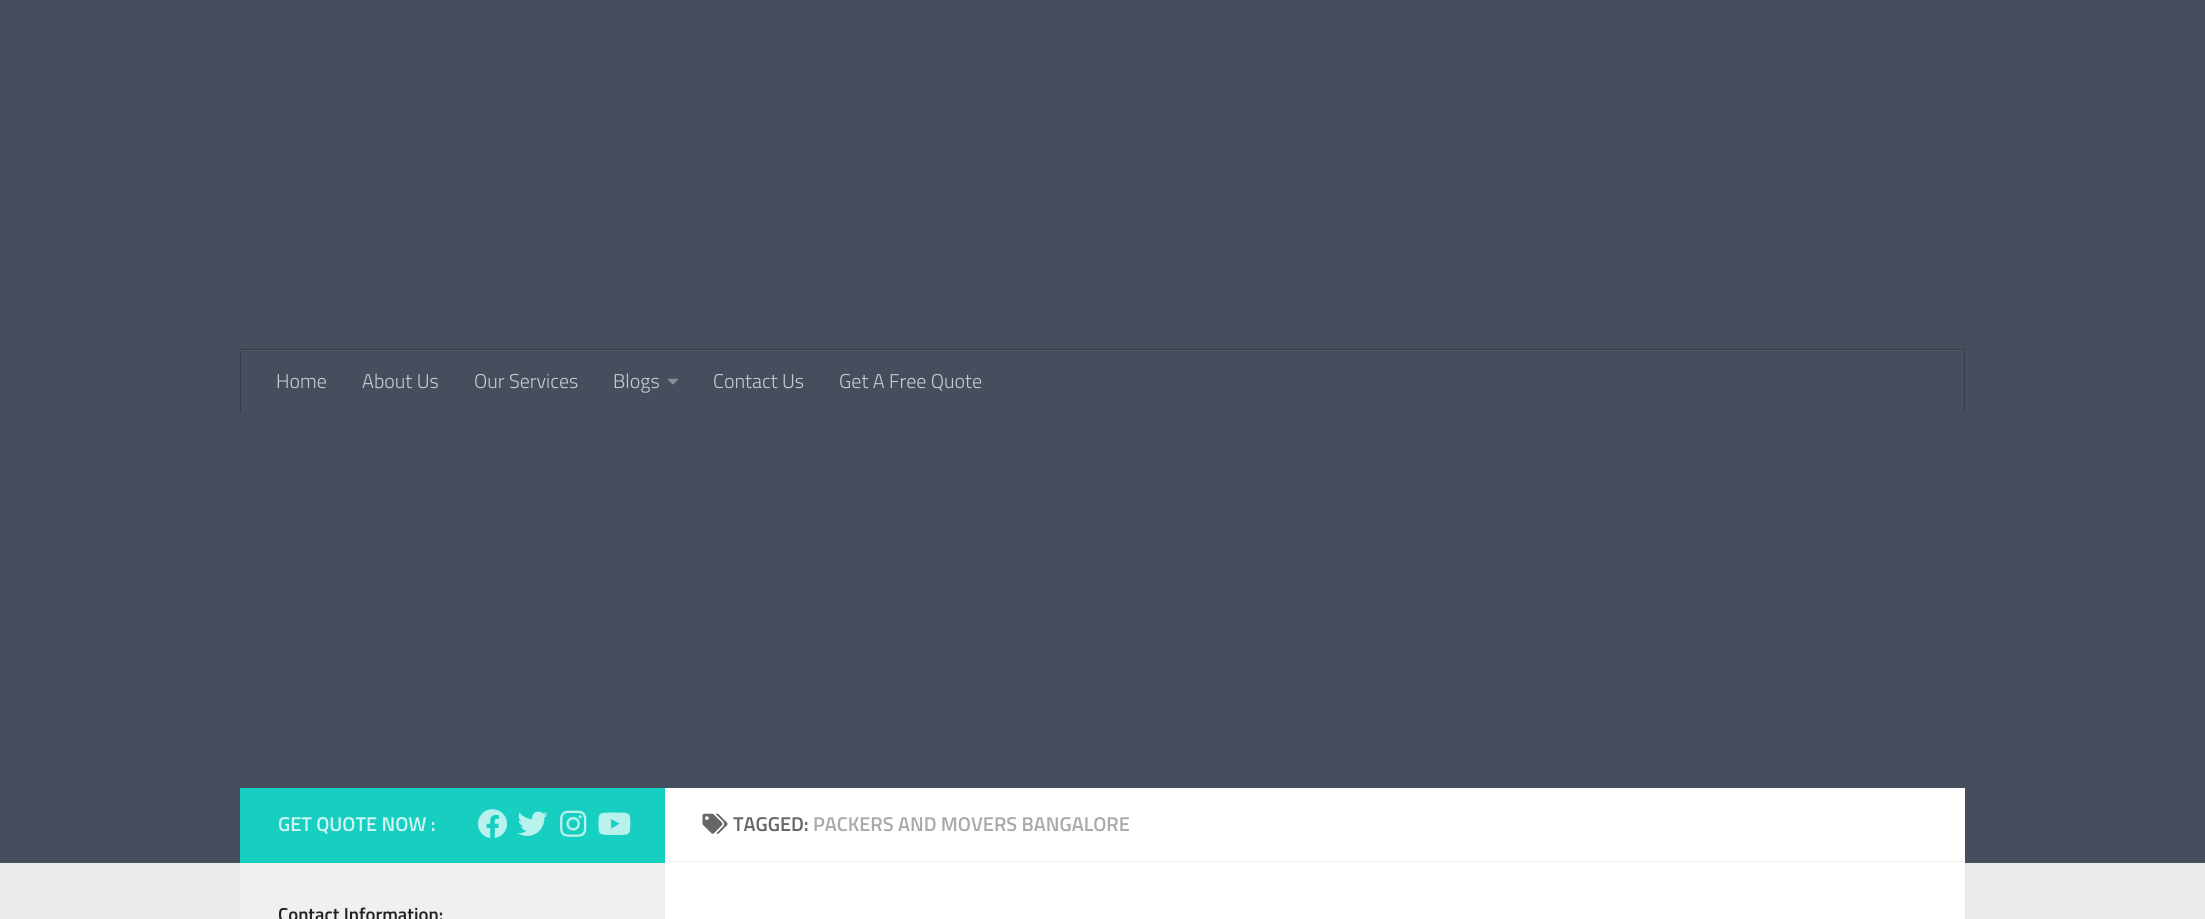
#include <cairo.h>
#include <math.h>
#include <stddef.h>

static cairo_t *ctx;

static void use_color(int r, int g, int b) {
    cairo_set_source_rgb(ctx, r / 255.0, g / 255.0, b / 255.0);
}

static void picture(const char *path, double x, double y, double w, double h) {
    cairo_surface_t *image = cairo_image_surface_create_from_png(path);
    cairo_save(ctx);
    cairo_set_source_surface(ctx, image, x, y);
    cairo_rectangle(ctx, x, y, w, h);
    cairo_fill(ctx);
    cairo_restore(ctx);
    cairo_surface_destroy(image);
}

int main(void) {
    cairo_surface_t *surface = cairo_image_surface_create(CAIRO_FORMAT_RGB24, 2205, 919);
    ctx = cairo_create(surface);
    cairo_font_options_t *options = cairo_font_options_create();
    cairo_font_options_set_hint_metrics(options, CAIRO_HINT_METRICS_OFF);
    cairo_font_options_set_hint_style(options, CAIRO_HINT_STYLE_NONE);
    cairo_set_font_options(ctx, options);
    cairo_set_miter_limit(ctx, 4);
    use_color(234, 234, 234);
    cairo_paint(ctx);
    use_color(69, 78, 92);
    cairo_rectangle(ctx, 0, 0, 2205, 863);
    cairo_fill(ctx);
    use_color(78, 87, 100);
    cairo_rectangle(ctx, 240, 350, 1725, 1);
    cairo_fill(ctx);
    use_color(55, 62, 74);
    cairo_rectangle(ctx, 240, 349, 1725, 1);
    cairo_fill(ctx);
    cairo_rectangle(ctx, 1964, 350, 1, 63);
    cairo_fill(ctx);
    use_color(65, 72, 83);
    cairo_rectangle(ctx, 1964, 350, 1, 1);
    cairo_fill(ctx);
    use_color(55, 62, 74);
    cairo_rectangle(ctx, 240, 350, 1, 63);
    cairo_fill(ctx);
    use_color(65, 72, 83);
    cairo_rectangle(ctx, 240, 350, 1, 1);
    cairo_fill(ctx);
    cairo_select_font_face(ctx, "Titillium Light", CAIRO_FONT_SLANT_NORMAL, CAIRO_FONT_WEIGHT_NORMAL);
    cairo_set_font_size(ctx, 20);
    use_color(199, 202, 206);
    cairo_move_to(ctx, 276, 388);
    cairo_show_text(ctx, "Home");
    cairo_move_to(ctx, 362, 388);
    cairo_show_text(ctx, "About Us");
    cairo_move_to(ctx, 474, 388);
    cairo_show_text(ctx, "Our Services");
    cairo_move_to(ctx, 613, 388);
    cairo_show_text(ctx, "Blogs");
    picture("img1.png", 668, 378, 10, 7);
    cairo_move_to(ctx, 713, 388);
    cairo_show_text(ctx, "Contact Us");
    cairo_move_to(ctx, 839, 388);
    cairo_show_text(ctx, "Get A Free Quote");
    use_color(255, 255, 255);
    cairo_rectangle(ctx, 665, 788, 1300, 131);
    cairo_fill(ctx);
    use_color(22, 207, 193);
    cairo_rectangle(ctx, 240, 788, 425, 75);
    cairo_fill(ctx);
    cairo_select_font_face(ctx, "Titillium SemiBold", CAIRO_FONT_SLANT_NORMAL, CAIRO_FONT_WEIGHT_NORMAL);
    use_color(208, 245, 243);
    cairo_move_to(ctx, 278, 831);
    cairo_show_text(ctx, "GET QUOTE NOW :");
    picture("img2.png", 478, 809, 29, 29);
    picture("img3.png", 517, 811, 31, 25);
    picture("img4.png", 560, 810, 27, 27);
    picture("img5.png", 598, 812, 33, 23);
    use_color(240, 240, 240);
    cairo_rectangle(ctx, 240, 863, 425, 56);
    cairo_fill(ctx);
    cairo_set_font_size(ctx, 18.75);
    use_color(34, 34, 34);
    cairo_move_to(ctx, 278, 921);
    cairo_show_text(ctx, "Contact Information:");
    use_color(238, 238, 238);
    cairo_rectangle(ctx, 665, 861, 1300, 1);
    cairo_fill(ctx);
    picture("img6.png", 702, 813, 26, 21);
    cairo_set_font_size(ctx, 20);
    use_color(102, 102, 102);
    cairo_move_to(ctx, 733, 831);
    cairo_show_text(ctx, "TAGGED:");
    use_color(170, 170, 170);
    cairo_move_to(ctx, 813, 831);
    cairo_show_text(ctx, "PACKERS AND MOVERS BANGALORE");
    cairo_surface_write_to_png(surface, "result.png");
    cairo_font_options_destroy(options);
    cairo_destroy(ctx);
    cairo_surface_destroy(surface);
    return 0;
}
